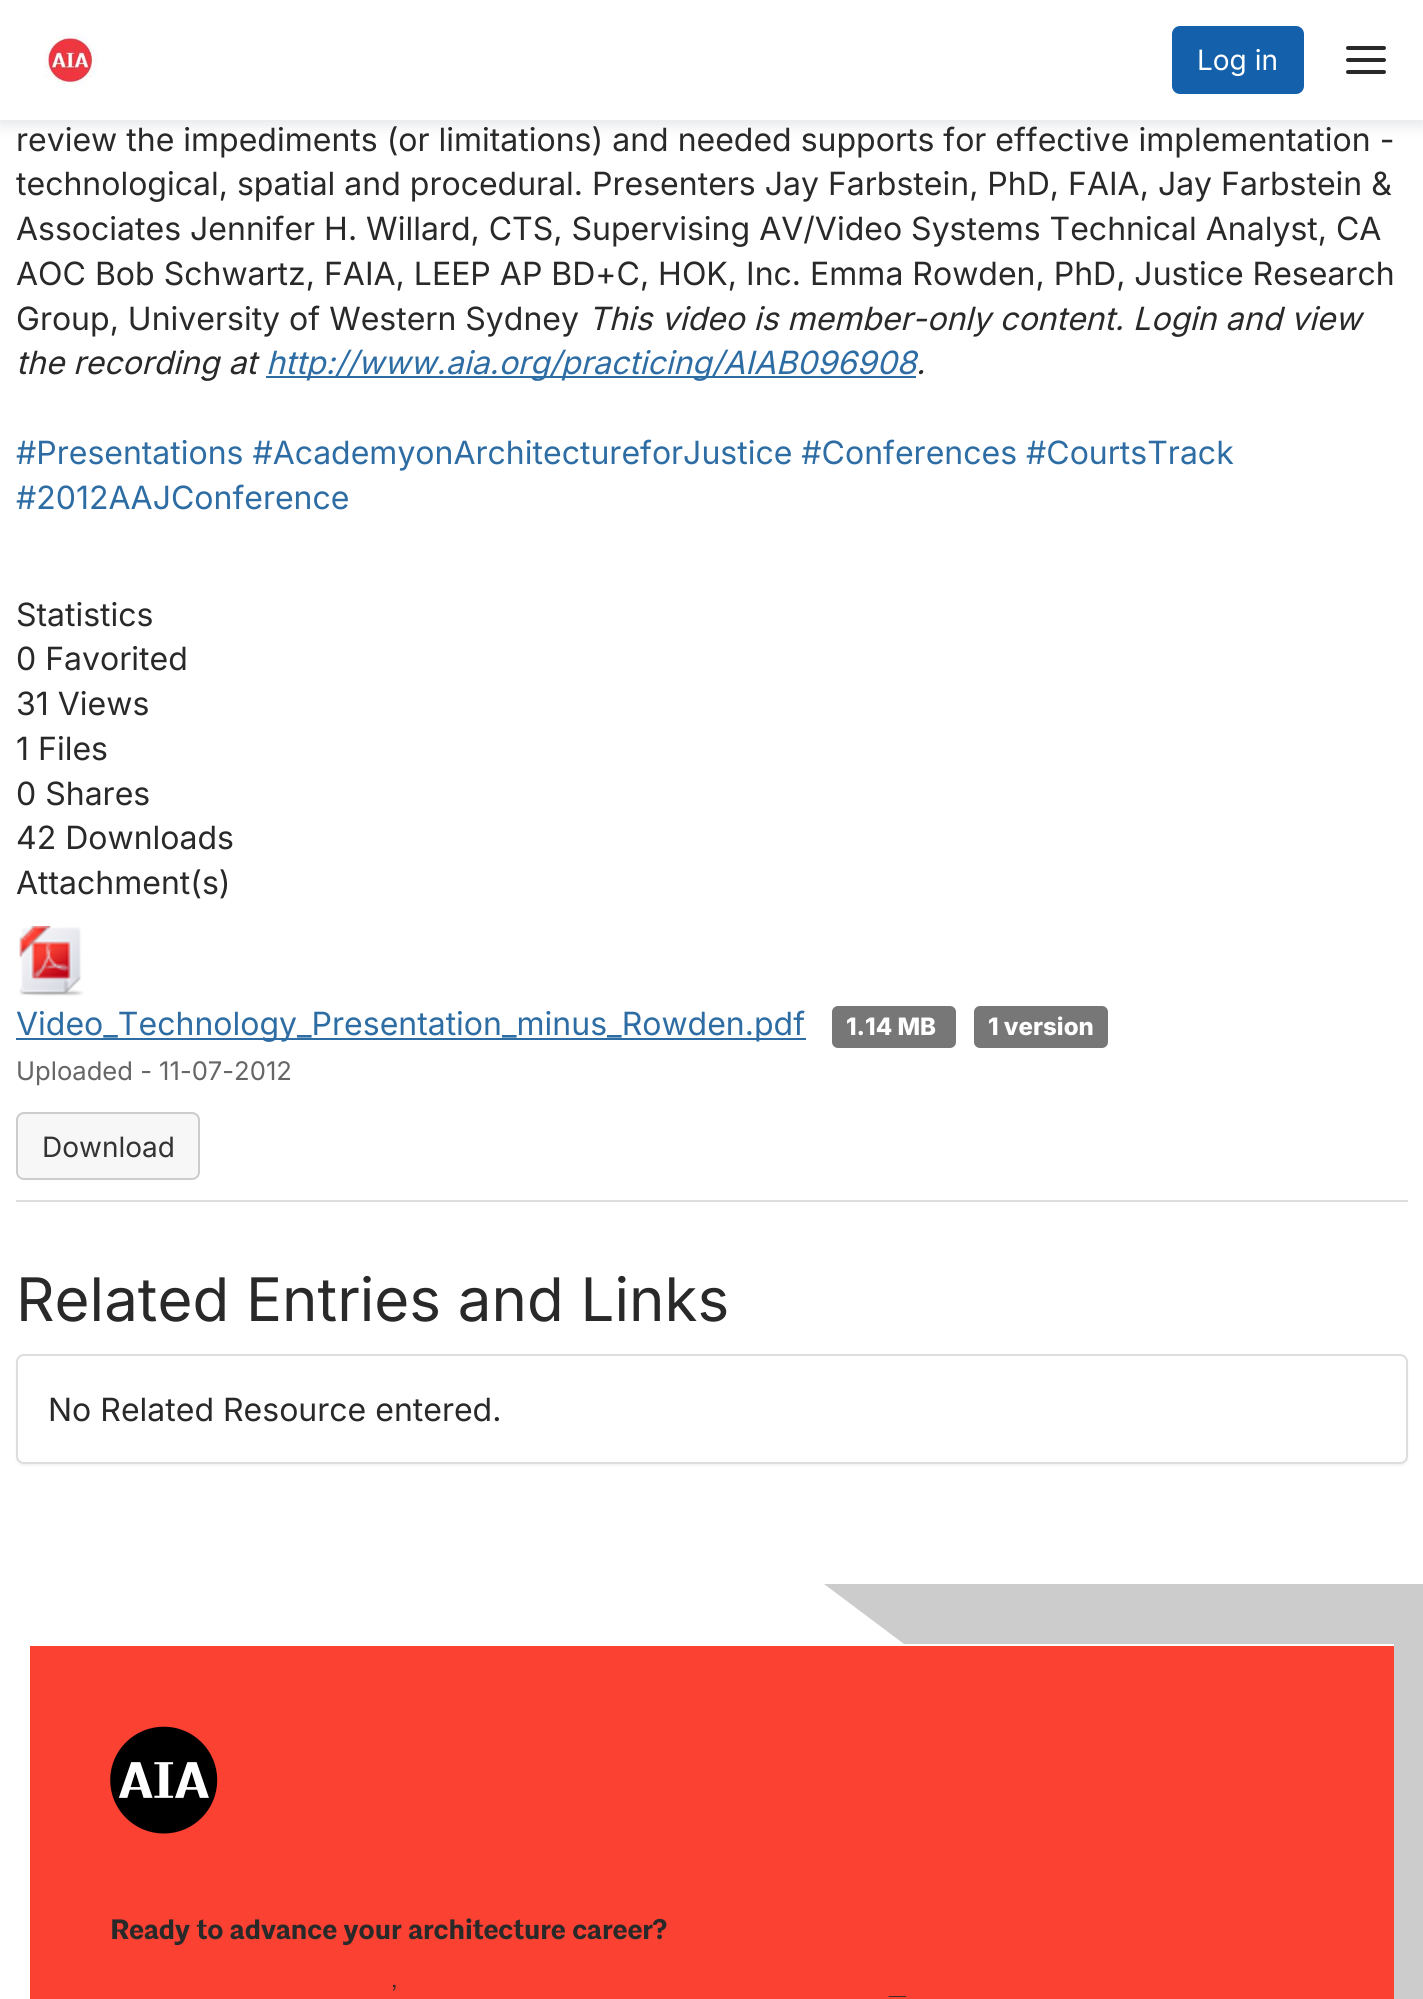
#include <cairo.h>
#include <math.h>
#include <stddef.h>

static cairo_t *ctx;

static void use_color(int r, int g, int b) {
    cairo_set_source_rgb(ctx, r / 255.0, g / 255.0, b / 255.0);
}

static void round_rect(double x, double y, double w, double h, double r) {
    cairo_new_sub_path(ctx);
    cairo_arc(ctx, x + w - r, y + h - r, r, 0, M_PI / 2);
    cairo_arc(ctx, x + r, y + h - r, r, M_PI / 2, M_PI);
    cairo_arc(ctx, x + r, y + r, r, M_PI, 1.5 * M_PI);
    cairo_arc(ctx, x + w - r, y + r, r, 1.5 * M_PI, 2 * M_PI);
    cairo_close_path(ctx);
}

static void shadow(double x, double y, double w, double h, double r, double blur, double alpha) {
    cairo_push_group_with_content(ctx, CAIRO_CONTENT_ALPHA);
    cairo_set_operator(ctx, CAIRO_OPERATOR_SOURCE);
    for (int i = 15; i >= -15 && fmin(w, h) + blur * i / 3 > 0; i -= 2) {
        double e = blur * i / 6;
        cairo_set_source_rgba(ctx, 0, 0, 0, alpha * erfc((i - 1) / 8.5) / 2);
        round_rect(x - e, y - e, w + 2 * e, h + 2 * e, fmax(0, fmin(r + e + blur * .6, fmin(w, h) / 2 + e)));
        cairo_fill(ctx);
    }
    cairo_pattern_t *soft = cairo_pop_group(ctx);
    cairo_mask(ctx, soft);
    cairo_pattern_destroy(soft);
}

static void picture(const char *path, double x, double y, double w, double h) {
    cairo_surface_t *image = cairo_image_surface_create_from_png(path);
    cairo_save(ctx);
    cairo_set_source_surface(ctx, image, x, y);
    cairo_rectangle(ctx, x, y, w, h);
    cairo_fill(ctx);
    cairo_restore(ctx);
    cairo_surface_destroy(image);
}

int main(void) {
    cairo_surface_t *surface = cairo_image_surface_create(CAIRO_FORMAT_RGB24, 1423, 1999);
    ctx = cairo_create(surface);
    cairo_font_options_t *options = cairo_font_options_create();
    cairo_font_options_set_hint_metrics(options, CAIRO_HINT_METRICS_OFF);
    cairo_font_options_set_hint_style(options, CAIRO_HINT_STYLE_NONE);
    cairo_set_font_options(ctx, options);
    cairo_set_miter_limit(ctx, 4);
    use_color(255, 255, 255);
    cairo_paint(ctx);
    use_color(131, 135, 145);
    shadow(0, 4, 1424, 120, 0, 8, 0.24);
    use_color(255, 255, 255);
    cairo_rectangle(ctx, 0, 0, 1423, 120);
    cairo_fill(ctx);
    picture("img1.png", 44, 34, 54, 54);
    use_color(20, 96, 170);
    round_rect(1173, 27, 130, 66, 7);
    cairo_fill_preserve(ctx);
    cairo_stroke(ctx);
    cairo_select_font_face(ctx, "Inter", CAIRO_FONT_SLANT_NORMAL, CAIRO_FONT_WEIGHT_NORMAL);
    cairo_set_font_size(ctx, 28);
    use_color(255, 255, 255);
    cairo_move_to(ctx, 1197, 70);
    cairo_show_text(ctx, "Log in");
    use_color(41, 41, 41);
    round_rect(1346, 46, 40, 4, 2);
    cairo_fill(ctx);
    round_rect(1346, 58, 40, 4, 2);
    cairo_fill(ctx);
    round_rect(1346, 70, 40, 4, 2);
    cairo_fill(ctx);
    cairo_set_font_size(ctx, 32);
    cairo_move_to(ctx, 16, 151);
    cairo_show_text(ctx, "review the impediments (or limitations) and needed supports for effective implementation -");
    cairo_move_to(ctx, 16, 195);
    cairo_show_text(ctx, "technological, spatial and procedural. Presenters Jay Farbstein, PhD, FAIA, Jay Farbstein &");
    cairo_move_to(ctx, 16, 240);
    cairo_show_text(ctx, "Associates Jennifer H. Willard, CTS, Supervising AV/Video Systems Technical Analyst, CA");
    cairo_move_to(ctx, 16, 285);
    cairo_show_text(ctx, "AOC Bob Schwartz, FAIA, LEEP AP BD+C, HOK, Inc. Emma Rowden, PhD, Justice Research");
    cairo_move_to(ctx, 16, 330);
    cairo_show_text(ctx, "Group, University of Western Sydney");
    cairo_select_font_face(ctx, "Inter", CAIRO_FONT_SLANT_ITALIC, CAIRO_FONT_WEIGHT_NORMAL);
    cairo_move_to(ctx, 588, 330);
    cairo_show_text(ctx, "This video is member-only content. Login and view");
    cairo_move_to(ctx, 16, 374);
    cairo_show_text(ctx, "the recording at");
    use_color(46, 109, 164);
    cairo_rectangle(ctx, 266, 376, 650, 2);
    cairo_fill(ctx);
    cairo_move_to(ctx, 266, 374);
    cairo_show_text(ctx, "http://www.aia.org/practicing/AIAB096908");
    use_color(41, 41, 41);
    cairo_move_to(ctx, 916, 374);
    cairo_show_text(ctx, ".");
    cairo_select_font_face(ctx, "Inter", CAIRO_FONT_SLANT_NORMAL, CAIRO_FONT_WEIGHT_NORMAL);
    use_color(46, 109, 164);
    cairo_move_to(ctx, 16, 464);
    cairo_show_text(ctx, "#Presentations #AcademyonArchitectureforJustice #Conferences #CourtsTrack");
    cairo_move_to(ctx, 16, 509);
    cairo_show_text(ctx, "#2012AAJConference");
    use_color(41, 41, 41);
    cairo_move_to(ctx, 16, 626);
    cairo_show_text(ctx, "Statistics");
    cairo_move_to(ctx, 16, 670);
    cairo_show_text(ctx, "0 Favorited");
    cairo_move_to(ctx, 16, 715);
    cairo_show_text(ctx, "31 Views");
    cairo_move_to(ctx, 16, 760);
    cairo_show_text(ctx, "1 Files");
    cairo_move_to(ctx, 16, 805);
    cairo_show_text(ctx, "0 Shares");
    cairo_move_to(ctx, 16, 849);
    cairo_show_text(ctx, "42 Downloads");
    cairo_move_to(ctx, 16, 894);
    cairo_show_text(ctx, "Attachment(s)");
    use_color(221, 221, 221);
    cairo_rectangle(ctx, 16, 1200, 1392, 2);
    cairo_fill(ctx);
    picture("img2.png", 19, 926, 65, 70);
    use_color(46, 109, 164);
    cairo_rectangle(ctx, 16, 1038, 790, 2);
    cairo_fill(ctx);
    cairo_move_to(ctx, 16, 1035);
    cairo_show_text(ctx, "Video_Technology_Presentation_minus_Rowden.pdf");
    use_color(119, 119, 119);
    round_rect(832, 1006, 124, 42, 6);
    cairo_fill(ctx);
    cairo_select_font_face(ctx, "Inter ExtraBold", CAIRO_FONT_SLANT_NORMAL, CAIRO_FONT_WEIGHT_NORMAL);
    cairo_set_font_size(ctx, 24);
    use_color(255, 255, 255);
    cairo_move_to(ctx, 846, 1035);
    cairo_show_text(ctx, "1.14 MB");
    use_color(119, 119, 119);
    round_rect(974, 1006, 134, 42, 6);
    cairo_fill(ctx);
    use_color(255, 255, 255);
    cairo_move_to(ctx, 988, 1035);
    cairo_show_text(ctx, "1 version");
    cairo_select_font_face(ctx, "Inter", CAIRO_FONT_SLANT_NORMAL, CAIRO_FONT_WEIGHT_NORMAL);
    cairo_set_font_size(ctx, 25.6);
    use_color(102, 102, 102);
    cairo_move_to(ctx, 16, 1080);
    cairo_show_text(ctx, "Uploaded - 11-07-2012");
    use_color(247, 247, 247);
    round_rect(17, 1113, 182, 66, 7);
    cairo_fill_preserve(ctx);
    use_color(204, 204, 204);
    cairo_stroke(ctx);
    cairo_set_font_size(ctx, 28);
    use_color(51, 51, 51);
    cairo_move_to(ctx, 42, 1157);
    cairo_show_text(ctx, "Download");
    cairo_set_font_size(ctx, 60);
    use_color(41, 41, 41);
    cairo_move_to(ctx, 16, 1321);
    cairo_show_text(ctx, "Related Entries and Links");
    use_color(0, 0, 0);
    shadow(16, 1356, 1392, 110, 8, 1, 0.05);
    use_color(255, 255, 255);
    round_rect(17, 1355, 1390, 108, 7);
    cairo_fill_preserve(ctx);
    use_color(221, 221, 221);
    cairo_stroke(ctx);
    cairo_set_font_size(ctx, 32);
    use_color(41, 41, 41);
    cairo_move_to(ctx, 48, 1421);
    cairo_show_text(ctx, "No Related Resource entered.");
    use_color(204, 204, 204);
    cairo_new_path(ctx);
    cairo_move_to(ctx, 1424, 1584);
    cairo_line_to(ctx, 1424, 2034);
    cairo_line_to(ctx, 824, 1584);
    cairo_close_path(ctx);
    cairo_fill(ctx);
    use_color(255, 255, 255);
    cairo_rectangle(ctx, 904, 1644, 490, 2);
    cairo_fill(ctx);
    use_color(250, 65, 50);
    cairo_rectangle(ctx, 30, 1646, 1364, 353);
    cairo_fill(ctx);
    picture("img3.png", 110, 1726, 108, 108);
    cairo_select_font_face(ctx, "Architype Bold", CAIRO_FONT_SLANT_NORMAL, CAIRO_FONT_WEIGHT_BOLD);
    cairo_set_font_size(ctx, 28);
    use_color(41, 41, 41);
    cairo_move_to(ctx, 110, 1939);
    cairo_show_text(ctx, "Ready to advance your architecture career?");
    cairo_select_font_face(ctx, "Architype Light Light", CAIRO_FONT_SLANT_NORMAL, CAIRO_FONT_WEIGHT_NORMAL);
    cairo_move_to(ctx, 391, 2005);
    cairo_show_text(ctx, "’");
    cairo_move_to(ctx, 887, 2005);
    cairo_show_text(ctx, "—");
    cairo_surface_write_to_png(surface, "result.png");
    cairo_font_options_destroy(options);
    cairo_destroy(ctx);
    cairo_surface_destroy(surface);
    return 0;
}
